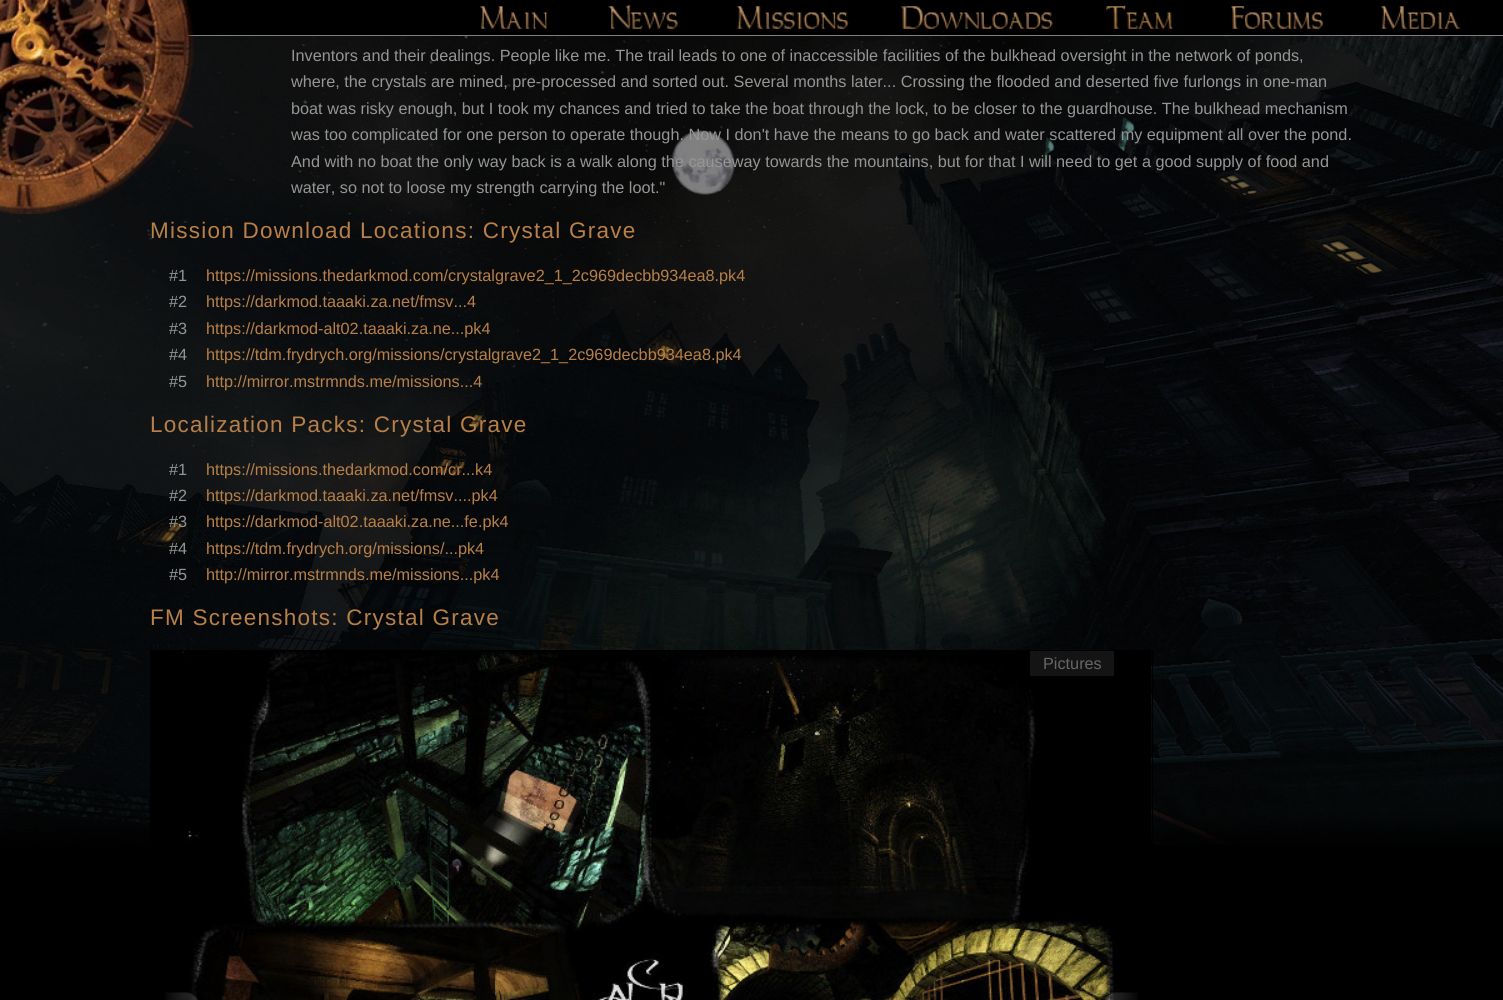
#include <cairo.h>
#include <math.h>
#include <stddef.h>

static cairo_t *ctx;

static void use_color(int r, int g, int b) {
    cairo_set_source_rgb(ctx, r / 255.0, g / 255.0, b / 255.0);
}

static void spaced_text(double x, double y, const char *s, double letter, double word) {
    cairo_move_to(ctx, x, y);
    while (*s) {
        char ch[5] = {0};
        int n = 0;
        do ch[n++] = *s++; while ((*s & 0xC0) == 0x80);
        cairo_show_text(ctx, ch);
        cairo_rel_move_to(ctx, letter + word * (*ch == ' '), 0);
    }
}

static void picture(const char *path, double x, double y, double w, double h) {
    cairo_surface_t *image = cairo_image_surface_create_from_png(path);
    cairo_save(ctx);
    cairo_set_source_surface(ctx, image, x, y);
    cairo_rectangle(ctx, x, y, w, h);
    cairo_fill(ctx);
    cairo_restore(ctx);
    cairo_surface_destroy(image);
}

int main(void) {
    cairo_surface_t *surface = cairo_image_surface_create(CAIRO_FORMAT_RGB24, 1503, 1000);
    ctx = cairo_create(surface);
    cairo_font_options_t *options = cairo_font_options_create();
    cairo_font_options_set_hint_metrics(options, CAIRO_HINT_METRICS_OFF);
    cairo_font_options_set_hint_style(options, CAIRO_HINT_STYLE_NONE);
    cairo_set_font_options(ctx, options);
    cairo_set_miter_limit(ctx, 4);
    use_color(0, 0, 0);
    cairo_paint(ctx);
    picture("img1.png", 0, 36, 1503, 809);
    use_color(128, 128, 128);
    cairo_rectangle(ctx, 187, 35, 1316, 1);
    cairo_fill(ctx);
    picture("img2.png", 0, 0, 194, 214);
    picture("img3.png", 480, 6, 68, 23);
    picture("img4.png", 608, 4, 70, 25);
    picture("img5.png", 736, 6, 113, 23);
    picture("img6.png", 901, 6, 152, 23);
    picture("img7.png", 1106, 5, 68, 24);
    picture("img8.png", 1231, 6, 93, 23);
    picture("img9.png", 1381, 6, 80, 23);
    cairo_select_font_face(ctx, "Liberation Sans", CAIRO_FONT_SLANT_NORMAL, CAIRO_FONT_WEIGHT_NORMAL);
    cairo_set_font_size(ctx, 16.25);
    use_color(149, 149, 149);
    cairo_move_to(ctx, 291, 61);
    cairo_show_text(ctx, "Inventors and their dealings. People like me. The trail leads to one of inaccessible facilities of the bulkhead oversight in the network of ponds,");
    cairo_move_to(ctx, 291, 87);
    cairo_show_text(ctx, "where, the crystals are mined, pre-processed and sorted out. Several months later... Crossing the flooded and deserted five furlongs in one-man");
    cairo_move_to(ctx, 291, 114);
    cairo_show_text(ctx, "boat was risky enough, but I took my chances and tried to take the boat through the lock, to be closer to the guardhouse. The bulkhead mechanism");
    cairo_move_to(ctx, 291, 140);
    cairo_show_text(ctx, "was too complicated for one person to operate though. Now I don't have the means to go back and water scattered my equipment all over the pond.");
    cairo_move_to(ctx, 291, 167);
    cairo_show_text(ctx, "And with no boat the only way back is a walk along the causeway towards the mountains, but for that I will need to get a good supply of food and");
    cairo_move_to(ctx, 291, 193);
    cairo_show_text(ctx, "water, so not to loose my strength carrying the loot.\"");
    cairo_set_font_size(ctx, 22.5);
    use_color(184, 128, 72);
    spaced_text(150, 238, "Mission Download Locations: Crystal Grave", 1.25, 0);
    cairo_set_font_size(ctx, 16.25);
    use_color(149, 149, 149);
    cairo_move_to(ctx, 169, 281);
    cairo_show_text(ctx, "#1");
    use_color(184, 128, 72);
    cairo_move_to(ctx, 206, 281);
    cairo_show_text(ctx, "https://missions.thedarkmod.com/crystalgrave2_1_2c969decbb934ea8.pk4");
    use_color(149, 149, 149);
    cairo_move_to(ctx, 169, 307);
    cairo_show_text(ctx, "#2");
    use_color(184, 128, 72);
    cairo_move_to(ctx, 206, 307);
    cairo_show_text(ctx, "https://darkmod.taaaki.za.net/fmsv...4");
    use_color(149, 149, 149);
    cairo_move_to(ctx, 169, 334);
    cairo_show_text(ctx, "#3");
    use_color(184, 128, 72);
    cairo_move_to(ctx, 206, 334);
    cairo_show_text(ctx, "https://darkmod-alt02.taaaki.za.ne...pk4");
    use_color(149, 149, 149);
    cairo_move_to(ctx, 169, 360);
    cairo_show_text(ctx, "#4");
    use_color(184, 128, 72);
    cairo_move_to(ctx, 206, 360);
    cairo_show_text(ctx, "https://tdm.frydrych.org/missions/crystalgrave2_1_2c969decbb934ea8.pk4");
    use_color(149, 149, 149);
    cairo_move_to(ctx, 169, 387);
    cairo_show_text(ctx, "#5");
    use_color(184, 128, 72);
    cairo_move_to(ctx, 206, 387);
    cairo_show_text(ctx, "http://mirror.mstrmnds.me/missions...4");
    cairo_set_font_size(ctx, 22.5);
    spaced_text(150, 432, "Localization Packs: Crystal Grave", 1.25, 0);
    cairo_set_font_size(ctx, 16.25);
    use_color(149, 149, 149);
    cairo_move_to(ctx, 169, 475);
    cairo_show_text(ctx, "#1");
    use_color(184, 128, 72);
    cairo_move_to(ctx, 206, 475);
    cairo_show_text(ctx, "https://missions.thedarkmod.com/cr...k4");
    use_color(149, 149, 149);
    cairo_move_to(ctx, 169, 501);
    cairo_show_text(ctx, "#2");
    use_color(184, 128, 72);
    cairo_move_to(ctx, 206, 501);
    cairo_show_text(ctx, "https://darkmod.taaaki.za.net/fmsv....pk4");
    use_color(149, 149, 149);
    cairo_move_to(ctx, 169, 527);
    cairo_show_text(ctx, "#3");
    use_color(184, 128, 72);
    cairo_move_to(ctx, 206, 527);
    cairo_show_text(ctx, "https://darkmod-alt02.taaaki.za.ne...fe.pk4");
    use_color(149, 149, 149);
    cairo_move_to(ctx, 169, 554);
    cairo_show_text(ctx, "#4");
    use_color(184, 128, 72);
    cairo_move_to(ctx, 206, 554);
    cairo_show_text(ctx, "https://tdm.frydrych.org/missions/...pk4");
    use_color(149, 149, 149);
    cairo_move_to(ctx, 169, 580);
    cairo_show_text(ctx, "#5");
    use_color(184, 128, 72);
    cairo_move_to(ctx, 206, 580);
    cairo_show_text(ctx, "http://mirror.mstrmnds.me/missions...pk4");
    cairo_set_font_size(ctx, 22.5);
    spaced_text(150, 625, "FM Screenshots: Crystal Grave", 1.25, 0);
    cairo_rectangle(ctx, 150.5, 650.5, 1002, 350);
    use_color(0, 0, 0);
    cairo_set_line_width(ctx, 1);
    cairo_stroke(ctx);
    cairo_rectangle(ctx, 151, 651, 1000, 194);
    cairo_fill(ctx);
    picture("img10.png", 182, 651, 936, 349);
    use_color(20, 20, 20);
    cairo_rectangle(ctx, 1030, 651, 84, 25);
    cairo_fill(ctx);
    cairo_set_font_size(ctx, 16.25);
    use_color(102, 102, 102);
    cairo_move_to(ctx, 1043, 669);
    cairo_show_text(ctx, "Pictures");
    picture("img11.png", 165, 992, 33, 8);
    picture("img12.png", 1105, 992, 33, 8);
    cairo_surface_write_to_png(surface, "result.png");
    cairo_font_options_destroy(options);
    cairo_destroy(ctx);
    cairo_surface_destroy(surface);
    return 0;
}
